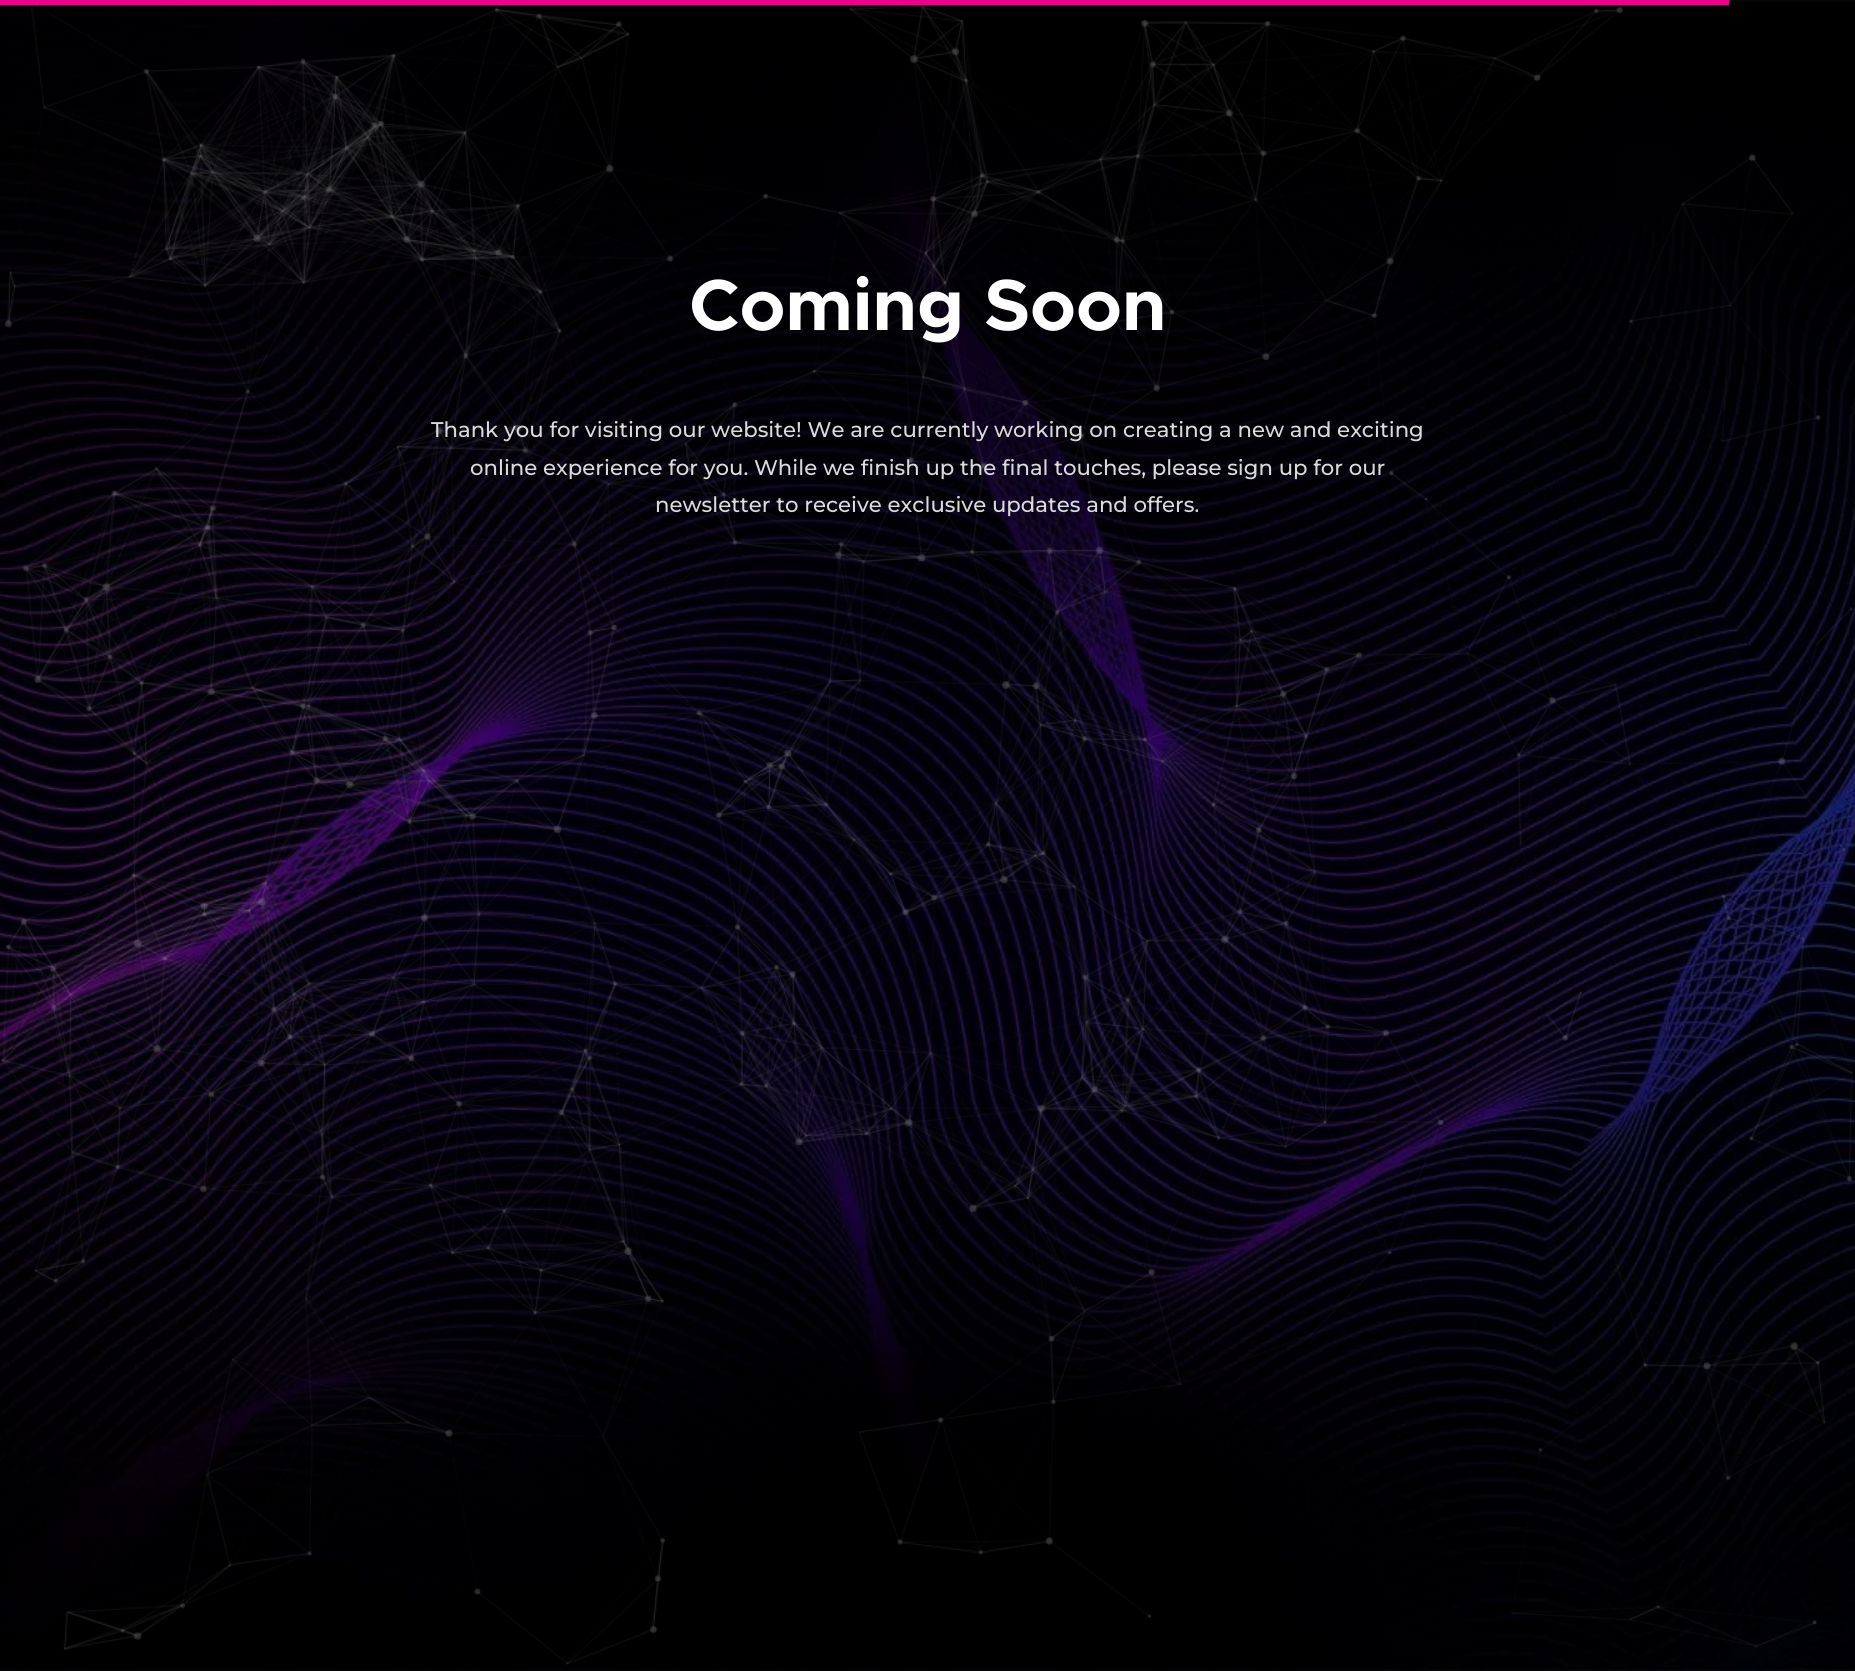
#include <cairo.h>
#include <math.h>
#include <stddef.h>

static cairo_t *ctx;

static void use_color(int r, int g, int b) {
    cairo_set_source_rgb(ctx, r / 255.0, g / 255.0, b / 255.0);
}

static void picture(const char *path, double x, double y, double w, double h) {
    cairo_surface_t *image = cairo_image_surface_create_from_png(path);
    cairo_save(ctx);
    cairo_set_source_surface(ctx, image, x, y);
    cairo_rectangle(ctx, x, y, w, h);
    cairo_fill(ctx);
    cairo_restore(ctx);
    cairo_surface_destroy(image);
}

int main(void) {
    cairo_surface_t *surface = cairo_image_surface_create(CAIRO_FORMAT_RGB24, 1855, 1671);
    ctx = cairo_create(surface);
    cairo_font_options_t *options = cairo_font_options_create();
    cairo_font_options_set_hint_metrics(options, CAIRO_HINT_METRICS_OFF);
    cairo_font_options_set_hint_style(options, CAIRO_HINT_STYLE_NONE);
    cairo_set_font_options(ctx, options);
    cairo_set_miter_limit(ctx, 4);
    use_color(255, 255, 255);
    cairo_paint(ctx);
    picture("img1.png", 0, 0, 1855, 1671);
    use_color(236, 0, 140);
    cairo_rectangle(ctx, 0, 0, 1729, 5);
    cairo_fill(ctx);
    picture("img2.png", 1, 5, 1852, 1660);
    cairo_select_font_face(ctx, "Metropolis", CAIRO_FONT_SLANT_NORMAL, CAIRO_FONT_WEIGHT_BOLD);
    cairo_set_font_size(ctx, 72.5);
    use_color(255, 255, 255);
    cairo_move_to(ctx, 689, 330);
    cairo_show_text(ctx, "Coming Soon");
    cairo_select_font_face(ctx, "Montserrat Thin", CAIRO_FONT_SLANT_NORMAL, CAIRO_FONT_WEIGHT_NORMAL);
    cairo_set_font_size(ctx, 21.25);
    use_color(218, 217, 219);
    cairo_move_to(ctx, 431, 437);
    cairo_show_text(ctx, "Thank you for visiting our website! We are currently working on creating a new and exciting");
    cairo_move_to(ctx, 470, 475);
    cairo_show_text(ctx, "online experience for you. While we finish up the final touches, please sign up for our");
    cairo_move_to(ctx, 655, 512);
    cairo_show_text(ctx, "newsletter to receive exclusive updates and offers.");
    cairo_surface_write_to_png(surface, "result.png");
    cairo_font_options_destroy(options);
    cairo_destroy(ctx);
    cairo_surface_destroy(surface);
    return 0;
}
